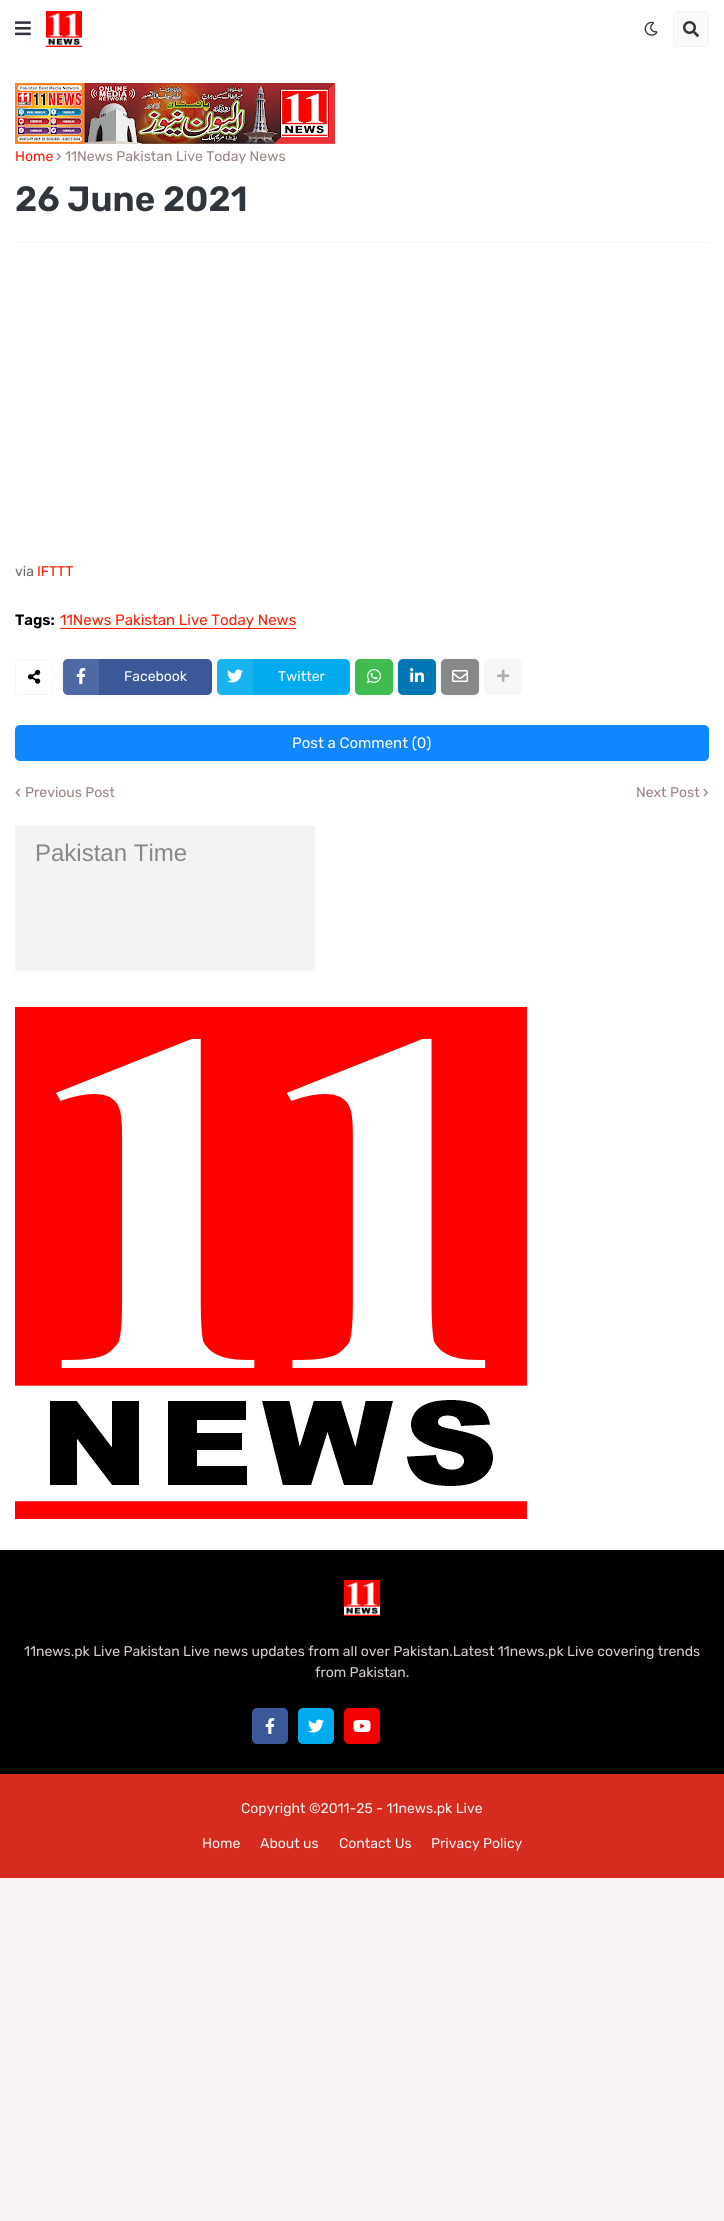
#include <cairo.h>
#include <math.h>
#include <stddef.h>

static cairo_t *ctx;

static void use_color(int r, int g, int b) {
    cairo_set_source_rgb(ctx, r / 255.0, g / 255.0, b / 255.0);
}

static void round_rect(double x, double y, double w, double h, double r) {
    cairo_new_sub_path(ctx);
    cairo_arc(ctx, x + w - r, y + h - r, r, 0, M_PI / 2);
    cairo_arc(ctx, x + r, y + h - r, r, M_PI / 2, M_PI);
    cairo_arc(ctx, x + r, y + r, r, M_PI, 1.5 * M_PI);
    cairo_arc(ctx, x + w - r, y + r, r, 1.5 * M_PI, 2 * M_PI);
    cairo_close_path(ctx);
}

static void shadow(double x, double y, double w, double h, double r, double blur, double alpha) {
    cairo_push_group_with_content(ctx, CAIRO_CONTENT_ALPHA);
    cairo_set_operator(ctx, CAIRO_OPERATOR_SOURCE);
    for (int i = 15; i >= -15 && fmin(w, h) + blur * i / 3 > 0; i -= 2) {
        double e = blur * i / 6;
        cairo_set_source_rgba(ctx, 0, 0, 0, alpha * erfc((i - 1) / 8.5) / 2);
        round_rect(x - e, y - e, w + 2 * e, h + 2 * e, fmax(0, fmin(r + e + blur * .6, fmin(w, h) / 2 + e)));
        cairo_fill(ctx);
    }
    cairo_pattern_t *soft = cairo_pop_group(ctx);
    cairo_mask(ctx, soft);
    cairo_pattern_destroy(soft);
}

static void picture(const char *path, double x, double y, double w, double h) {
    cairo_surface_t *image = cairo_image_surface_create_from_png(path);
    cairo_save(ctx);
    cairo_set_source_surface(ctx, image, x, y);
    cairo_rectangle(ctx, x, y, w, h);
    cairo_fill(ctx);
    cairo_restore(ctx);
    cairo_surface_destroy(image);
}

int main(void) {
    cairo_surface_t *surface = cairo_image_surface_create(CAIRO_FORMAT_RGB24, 724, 2221);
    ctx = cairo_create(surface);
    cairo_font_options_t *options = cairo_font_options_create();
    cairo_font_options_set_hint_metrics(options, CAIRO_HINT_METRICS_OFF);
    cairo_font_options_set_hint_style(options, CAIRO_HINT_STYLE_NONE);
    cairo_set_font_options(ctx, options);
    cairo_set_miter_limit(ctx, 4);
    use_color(249, 244, 243);
    cairo_paint(ctx);
    use_color(255, 255, 255);
    cairo_rectangle(ctx, 0, 0, 724, 1550);
    cairo_fill(ctx);
    picture("img1.png", 15, 21, 16, 15);
    picture("img2.png", 46, 11, 36, 36);
    picture("img3.png", 644, 21, 14, 15);
    use_color(250, 250, 250);
    round_rect(673.5, 11.5, 35, 35, 4.5);
    cairo_fill_preserve(ctx);
    use_color(241, 241, 241);
    cairo_set_line_width(ctx, 1);
    cairo_stroke(ctx);
    picture("img4.png", 683, 21, 16, 16);
    picture("img5.png", 15, 83, 320, 61);
    use_color(245, 245, 245);
    cairo_rectangle(ctx, 15, 242, 694, 1);
    cairo_fill(ctx);
    cairo_select_font_face(ctx, "Rubik", CAIRO_FONT_SLANT_NORMAL, CAIRO_FONT_WEIGHT_NORMAL);
    cairo_set_font_size(ctx, 14);
    use_color(255, 27, 2);
    cairo_move_to(ctx, 15, 161);
    cairo_show_text(ctx, "Home");
    picture("img6.png", 56, 152, 6, 9);
    use_color(155, 132, 131);
    cairo_move_to(ctx, 65, 161);
    cairo_show_text(ctx, "11News Pakistan Live Today News");
    cairo_select_font_face(ctx, "Rubik SemiBold", CAIRO_FONT_SLANT_NORMAL, CAIRO_FONT_WEIGHT_NORMAL);
    cairo_set_font_size(ctx, 35);
    use_color(47, 53, 59);
    cairo_move_to(ctx, 15, 211);
    cairo_show_text(ctx, "26 June 2021");
    cairo_select_font_face(ctx, "Rubik", CAIRO_FONT_SLANT_NORMAL, CAIRO_FONT_WEIGHT_NORMAL);
    cairo_set_font_size(ctx, 14);
    use_color(101, 101, 106);
    cairo_move_to(ctx, 15, 576);
    cairo_show_text(ctx, "via");
    use_color(255, 27, 2);
    cairo_move_to(ctx, 37, 576);
    cairo_show_text(ctx, "IFTTT");
    cairo_select_font_face(ctx, "Rubik SemiBold", CAIRO_FONT_SLANT_NORMAL, CAIRO_FONT_WEIGHT_NORMAL);
    cairo_set_font_size(ctx, 15);
    use_color(0, 0, 0);
    cairo_move_to(ctx, 15, 625);
    cairo_show_text(ctx, "Tags:");
    use_color(255, 27, 2);
    cairo_rectangle(ctx, 60, 628, 236, 1);
    cairo_fill(ctx);
    cairo_select_font_face(ctx, "Rubik", CAIRO_FONT_SLANT_NORMAL, CAIRO_FONT_WEIGHT_NORMAL);
    cairo_move_to(ctx, 60, 625);
    cairo_show_text(ctx, "11News Pakistan Live Today News");
    round_rect(15.5, 659.5, 37, 35, 4.5);
    use_color(245, 245, 245);
    cairo_stroke(ctx);
    picture("img7.png", 28, 669, 13, 15);
    cairo_set_source_rgba(ctx, 0.608, 0.608, 0.608, 0.1);
    cairo_new_path(ctx);
    cairo_move_to(ctx, 52, 683);
    cairo_line_to(ctx, 52, 671);
    cairo_line_to(ctx, 58, 677);
    cairo_close_path(ctx);
    cairo_fill(ctx);
    use_color(255, 255, 255);
    cairo_new_path(ctx);
    cairo_move_to(ctx, 52, 682);
    cairo_line_to(ctx, 52, 672);
    cairo_line_to(ctx, 57, 677);
    cairo_close_path(ctx);
    cairo_fill(ctx);
    use_color(0, 0, 0);
    shadow(63, 660, 149, 36, 5, 2, 0.05);
    use_color(59, 89, 153);
    round_rect(63, 659, 149, 36, 5);
    cairo_fill(ctx);
    cairo_set_source_rgba(ctx, 1, 1, 1, 0.1);
    cairo_new_path(ctx);
    cairo_move_to(ctx, 68, 659);
    cairo_line_to(ctx, 99, 659);
    cairo_line_to(ctx, 99, 695);
    cairo_line_to(ctx, 68, 695);
    cairo_curve_to(ctx, 65, 695, 63, 693, 63, 690);
    cairo_line_to(ctx, 63, 664);
    cairo_curve_to(ctx, 63, 661, 65, 659, 68, 659);
    cairo_close_path(ctx);
    cairo_fill(ctx);
    picture("img8.png", 76, 668, 10, 16);
    cairo_set_font_size(ctx, 14);
    use_color(255, 255, 255);
    cairo_move_to(ctx, 124, 681);
    cairo_show_text(ctx, "Facebook");
    use_color(0, 0, 0);
    shadow(217, 660, 133, 36, 5, 2, 0.05);
    use_color(0, 172, 238);
    round_rect(217, 659, 133, 36, 5);
    cairo_fill(ctx);
    cairo_set_source_rgba(ctx, 1, 1, 1, 0.1);
    cairo_new_path(ctx);
    cairo_move_to(ctx, 222, 659);
    cairo_line_to(ctx, 253, 659);
    cairo_line_to(ctx, 253, 695);
    cairo_line_to(ctx, 222, 695);
    cairo_curve_to(ctx, 219, 695, 217, 693, 217, 690);
    cairo_line_to(ctx, 217, 664);
    cairo_curve_to(ctx, 217, 661, 219, 659, 222, 659);
    cairo_close_path(ctx);
    cairo_fill(ctx);
    picture("img9.png", 227, 669, 16, 14);
    use_color(255, 255, 255);
    cairo_move_to(ctx, 278, 681);
    cairo_show_text(ctx, "Twitter");
    use_color(0, 0, 0);
    shadow(355, 660, 38, 36, 5, 2, 0.05);
    use_color(63, 187, 80);
    round_rect(355, 659, 38, 36, 5);
    cairo_fill(ctx);
    picture("img10.png", 367, 669, 14, 14);
    use_color(0, 0, 0);
    shadow(398, 660, 38, 36, 5, 2, 0.05);
    use_color(0, 119, 181);
    round_rect(398, 659, 38, 36, 5);
    cairo_fill(ctx);
    picture("img11.png", 410, 668, 14, 14);
    use_color(0, 0, 0);
    shadow(441, 660, 38, 36, 5, 2, 0.05);
    use_color(136, 136, 136);
    round_rect(441, 659, 38, 36, 5);
    cairo_fill(ctx);
    picture("img12.png", 452, 670, 16, 12);
    cairo_set_source_rgba(ctx, 0.608, 0.608, 0.608, 0.08);
    round_rect(484, 659, 38, 36, 5);
    cairo_fill(ctx);
    picture("img13.png", 497, 669, 13, 13);
    use_color(0, 0, 0);
    shadow(15, 726, 694, 36, 5, 2, 0.05);
    use_color(16, 135, 255);
    round_rect(15, 725, 694, 36, 5);
    cairo_fill(ctx);
    cairo_set_font_size(ctx, 15);
    use_color(255, 255, 255);
    cairo_move_to(ctx, 292, 748);
    cairo_show_text(ctx, "Post a Comment (0)");
    picture("img14.png", 15, 788, 6, 9);
    cairo_set_font_size(ctx, 14);
    use_color(155, 132, 131);
    cairo_move_to(ctx, 25, 797);
    cairo_show_text(ctx, "Previous Post");
    cairo_move_to(ctx, 636, 797);
    cairo_show_text(ctx, "Next Post");
    picture("img6.png", 703, 788, 6, 9);
    use_color(243, 243, 243);
    cairo_rectangle(ctx, 15, 826, 300, 145);
    cairo_fill(ctx);
    cairo_select_font_face(ctx, "Liberation Sans", CAIRO_FONT_SLANT_NORMAL, CAIRO_FONT_WEIGHT_NORMAL);
    cairo_set_font_size(ctx, 24);
    use_color(135, 135, 135);
    cairo_move_to(ctx, 35, 861);
    cairo_show_text(ctx, "Pakistan Time");
    picture("img15.png", 15, 1007, 512, 512);
    use_color(0, 0, 0);
    cairo_rectangle(ctx, 0, 1550, 724, 224);
    cairo_fill(ctx);
    picture("img2.png", 344, 1580, 36, 36);
    cairo_select_font_face(ctx, "Rubik", CAIRO_FONT_SLANT_NORMAL, CAIRO_FONT_WEIGHT_NORMAL);
    cairo_set_font_size(ctx, 14);
    use_color(216, 204, 204);
    cairo_move_to(ctx, 24, 1656);
    cairo_show_text(ctx, "11news.pk Live Pakistan Live news updates from all over Pakistan.Latest 11news.pk Live covering trends");
    cairo_move_to(ctx, 315, 1677);
    cairo_show_text(ctx, "from Pakistan.");
    use_color(59, 89, 153);
    round_rect(252, 1708, 36, 36, 5);
    cairo_fill(ctx);
    picture("img16.png", 265, 1718, 10, 16);
    use_color(0, 172, 238);
    round_rect(298, 1708, 36, 36, 5);
    cairo_fill(ctx);
    picture("img17.png", 308, 1719, 16, 14);
    use_color(245, 0, 0);
    round_rect(344, 1708, 36, 36, 5);
    cairo_fill(ctx);
    picture("img18.png", 353, 1720, 18, 12);
    use_color(213, 44, 31);
    cairo_rectangle(ctx, 0, 1774, 724, 104);
    cairo_fill(ctx);
    use_color(246, 244, 244);
    cairo_move_to(ctx, 241, 1813);
    cairo_show_text(ctx, "Copyright ©2011-25 - 11news.pk Live");
    cairo_move_to(ctx, 202, 1848);
    cairo_show_text(ctx, "Home");
    cairo_move_to(ctx, 260, 1848);
    cairo_show_text(ctx, "About us");
    cairo_move_to(ctx, 339, 1848);
    cairo_show_text(ctx, "Contact Us");
    cairo_move_to(ctx, 431, 1848);
    cairo_show_text(ctx, "Privacy Policy");
    cairo_surface_write_to_png(surface, "result.png");
    cairo_font_options_destroy(options);
    cairo_destroy(ctx);
    cairo_surface_destroy(surface);
    return 0;
}
